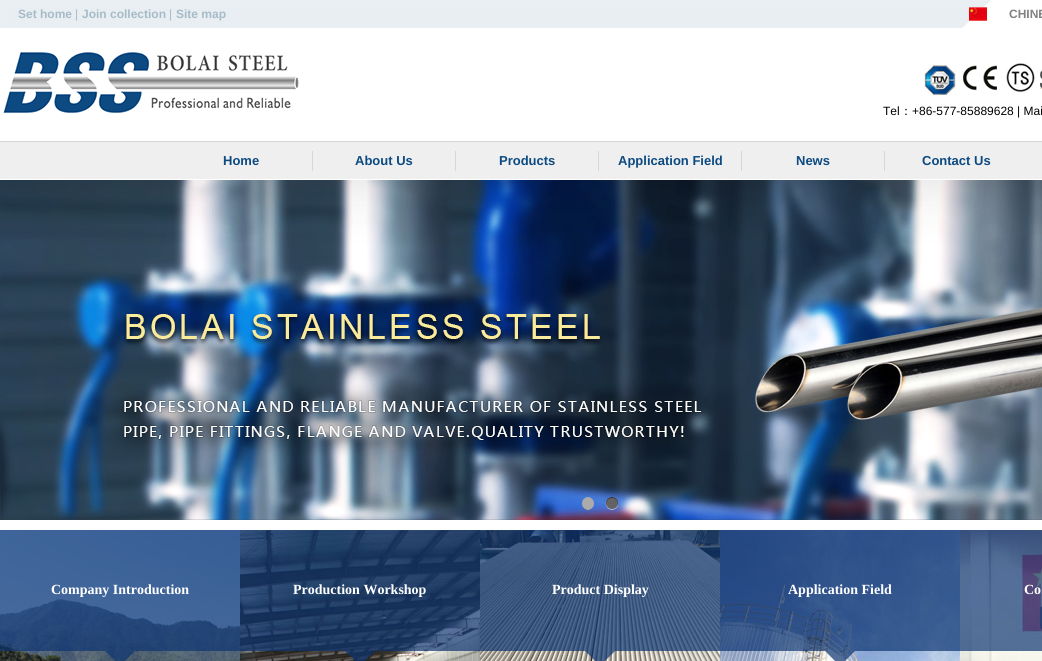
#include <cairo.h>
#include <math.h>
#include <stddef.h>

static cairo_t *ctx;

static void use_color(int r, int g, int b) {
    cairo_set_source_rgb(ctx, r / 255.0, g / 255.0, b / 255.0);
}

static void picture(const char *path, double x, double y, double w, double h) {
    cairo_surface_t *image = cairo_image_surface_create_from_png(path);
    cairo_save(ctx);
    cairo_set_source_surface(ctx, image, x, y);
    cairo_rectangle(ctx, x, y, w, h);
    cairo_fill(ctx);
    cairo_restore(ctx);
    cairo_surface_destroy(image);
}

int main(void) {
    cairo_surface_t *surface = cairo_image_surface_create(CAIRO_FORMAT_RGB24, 1042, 661);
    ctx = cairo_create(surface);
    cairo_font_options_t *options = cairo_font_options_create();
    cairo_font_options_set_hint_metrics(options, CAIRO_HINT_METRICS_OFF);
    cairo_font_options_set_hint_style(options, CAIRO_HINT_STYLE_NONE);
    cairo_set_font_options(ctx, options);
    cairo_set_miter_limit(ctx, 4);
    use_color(255, 255, 255);
    cairo_paint(ctx);
    picture("img1.png", 0, 0, 991, 28);
    cairo_select_font_face(ctx, "Liberation Sans", CAIRO_FONT_SLANT_NORMAL, CAIRO_FONT_WEIGHT_BOLD);
    cairo_set_font_size(ctx, 12);
    use_color(166, 187, 200);
    cairo_move_to(ctx, 18, 18);
    cairo_show_text(ctx, "Set home");
    cairo_select_font_face(ctx, "Liberation Sans", CAIRO_FONT_SLANT_NORMAL, CAIRO_FONT_WEIGHT_NORMAL);
    cairo_move_to(ctx, 75, 18);
    cairo_show_text(ctx, "|");
    cairo_select_font_face(ctx, "Liberation Sans", CAIRO_FONT_SLANT_NORMAL, CAIRO_FONT_WEIGHT_BOLD);
    cairo_move_to(ctx, 82, 18);
    cairo_show_text(ctx, "Join collection");
    cairo_select_font_face(ctx, "Liberation Sans", CAIRO_FONT_SLANT_NORMAL, CAIRO_FONT_WEIGHT_NORMAL);
    cairo_move_to(ctx, 169, 18);
    cairo_show_text(ctx, "|");
    cairo_select_font_face(ctx, "Liberation Sans", CAIRO_FONT_SLANT_NORMAL, CAIRO_FONT_WEIGHT_BOLD);
    cairo_move_to(ctx, 176, 18);
    cairo_show_text(ctx, "Site map");
    picture("img2.png", 969, 7, 18, 14);
    use_color(130, 130, 130);
    cairo_move_to(ctx, 1009, 18);
    cairo_show_text(ctx, "CHINE");
    picture("img3.png", 3, 52, 296, 62);
    picture("img4.png", 924, 65, 32, 30);
    picture("img5.png", 963, 65, 34, 26);
    picture("img6.png", 1006, 63, 29, 30);
    picture("img7.png", 1040, 70, 2, 19);
    cairo_select_font_face(ctx, "Liberation Sans", CAIRO_FONT_SLANT_NORMAL, CAIRO_FONT_WEIGHT_NORMAL);
    use_color(0, 0, 0);
    cairo_move_to(ctx, 883, 115);
    cairo_show_text(ctx, "Tel");
    cairo_select_font_face(ctx, "WenQuanYi Zen Hei Medium", CAIRO_FONT_SLANT_NORMAL, CAIRO_FONT_WEIGHT_NORMAL);
    cairo_move_to(ctx, 900, 115);
    cairo_show_text(ctx, "：");
    cairo_select_font_face(ctx, "Liberation Sans", CAIRO_FONT_SLANT_NORMAL, CAIRO_FONT_WEIGHT_NORMAL);
    cairo_move_to(ctx, 912, 115);
    cairo_show_text(ctx, "+86-577-85889628 | Mai");
    use_color(239, 239, 239);
    cairo_rectangle(ctx, 0, 142, 1042, 37);
    cairo_fill(ctx);
    use_color(215, 215, 215);
    cairo_rectangle(ctx, 0, 141, 1042, 1);
    cairo_fill(ctx);
    cairo_select_font_face(ctx, "Liberation Sans", CAIRO_FONT_SLANT_NORMAL, CAIRO_FONT_WEIGHT_BOLD);
    cairo_set_font_size(ctx, 13);
    use_color(12, 74, 129);
    cairo_move_to(ctx, 223, 165);
    cairo_show_text(ctx, "Home");
    use_color(215, 215, 215);
    cairo_rectangle(ctx, 312, 151, 1, 20);
    cairo_fill(ctx);
    use_color(12, 74, 129);
    cairo_move_to(ctx, 355, 165);
    cairo_show_text(ctx, "About Us");
    use_color(215, 215, 215);
    cairo_rectangle(ctx, 455, 151, 1, 20);
    cairo_fill(ctx);
    use_color(12, 74, 129);
    cairo_move_to(ctx, 499, 165);
    cairo_show_text(ctx, "Products");
    use_color(215, 215, 215);
    cairo_rectangle(ctx, 598, 151, 1, 20);
    cairo_fill(ctx);
    use_color(12, 74, 129);
    cairo_move_to(ctx, 618, 165);
    cairo_show_text(ctx, "Application Field");
    use_color(215, 215, 215);
    cairo_rectangle(ctx, 741, 151, 1, 20);
    cairo_fill(ctx);
    use_color(12, 74, 129);
    cairo_move_to(ctx, 796, 165);
    cairo_show_text(ctx, "News");
    use_color(215, 215, 215);
    cairo_rectangle(ctx, 884, 151, 1, 20);
    cairo_fill(ctx);
    use_color(12, 74, 129);
    cairo_move_to(ctx, 922, 165);
    cairo_show_text(ctx, "Contact Us");
    picture("img8.png", 0, 180, 1042, 340);
    picture("img9.png", 582, 497, 12, 13);
    picture("img10.png", 605, 497, 13, 13);
    picture("img11.png", 0, 530, 240, 131);
    cairo_select_font_face(ctx, "Liberation Serif", CAIRO_FONT_SLANT_NORMAL, CAIRO_FONT_WEIGHT_BOLD);
    cairo_set_font_size(ctx, 14);
    use_color(255, 255, 255);
    cairo_move_to(ctx, 51, 594);
    cairo_show_text(ctx, "Company Introduction");
    cairo_set_source_rgba(ctx, 0.047, 0.204, 0.443, 0.7);
    cairo_new_path(ctx);
    cairo_move_to(ctx, 105, 651);
    cairo_line_to(ctx, 135, 651);
    cairo_line_to(ctx, 120, 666);
    cairo_close_path(ctx);
    cairo_fill(ctx);
    picture("img12.png", 240, 530, 240, 131);
    use_color(255, 255, 255);
    cairo_move_to(ctx, 293, 594);
    cairo_show_text(ctx, "Production Workshop");
    cairo_set_source_rgba(ctx, 0.047, 0.204, 0.443, 0.7);
    cairo_new_path(ctx);
    cairo_move_to(ctx, 345, 651);
    cairo_line_to(ctx, 375, 651);
    cairo_line_to(ctx, 360, 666);
    cairo_close_path(ctx);
    cairo_fill(ctx);
    picture("img13.png", 480, 530, 240, 131);
    use_color(255, 255, 255);
    cairo_move_to(ctx, 552, 594);
    cairo_show_text(ctx, "Product Display");
    cairo_set_source_rgba(ctx, 0.047, 0.204, 0.443, 0.7);
    cairo_new_path(ctx);
    cairo_move_to(ctx, 585, 651);
    cairo_line_to(ctx, 615, 651);
    cairo_line_to(ctx, 600, 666);
    cairo_close_path(ctx);
    cairo_fill(ctx);
    picture("img14.png", 720, 530, 240, 131);
    use_color(255, 255, 255);
    cairo_move_to(ctx, 788, 594);
    cairo_show_text(ctx, "Application Field");
    cairo_set_source_rgba(ctx, 0.047, 0.204, 0.443, 0.7);
    cairo_new_path(ctx);
    cairo_move_to(ctx, 825, 651);
    cairo_line_to(ctx, 855, 651);
    cairo_line_to(ctx, 840, 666);
    cairo_close_path(ctx);
    cairo_fill(ctx);
    picture("img15.png", 960, 530, 82, 131);
    use_color(255, 255, 255);
    cairo_move_to(ctx, 1024, 594);
    cairo_show_text(ctx, "Co");
    cairo_surface_write_to_png(surface, "result.png");
    cairo_font_options_destroy(options);
    cairo_destroy(ctx);
    cairo_surface_destroy(surface);
    return 0;
}
